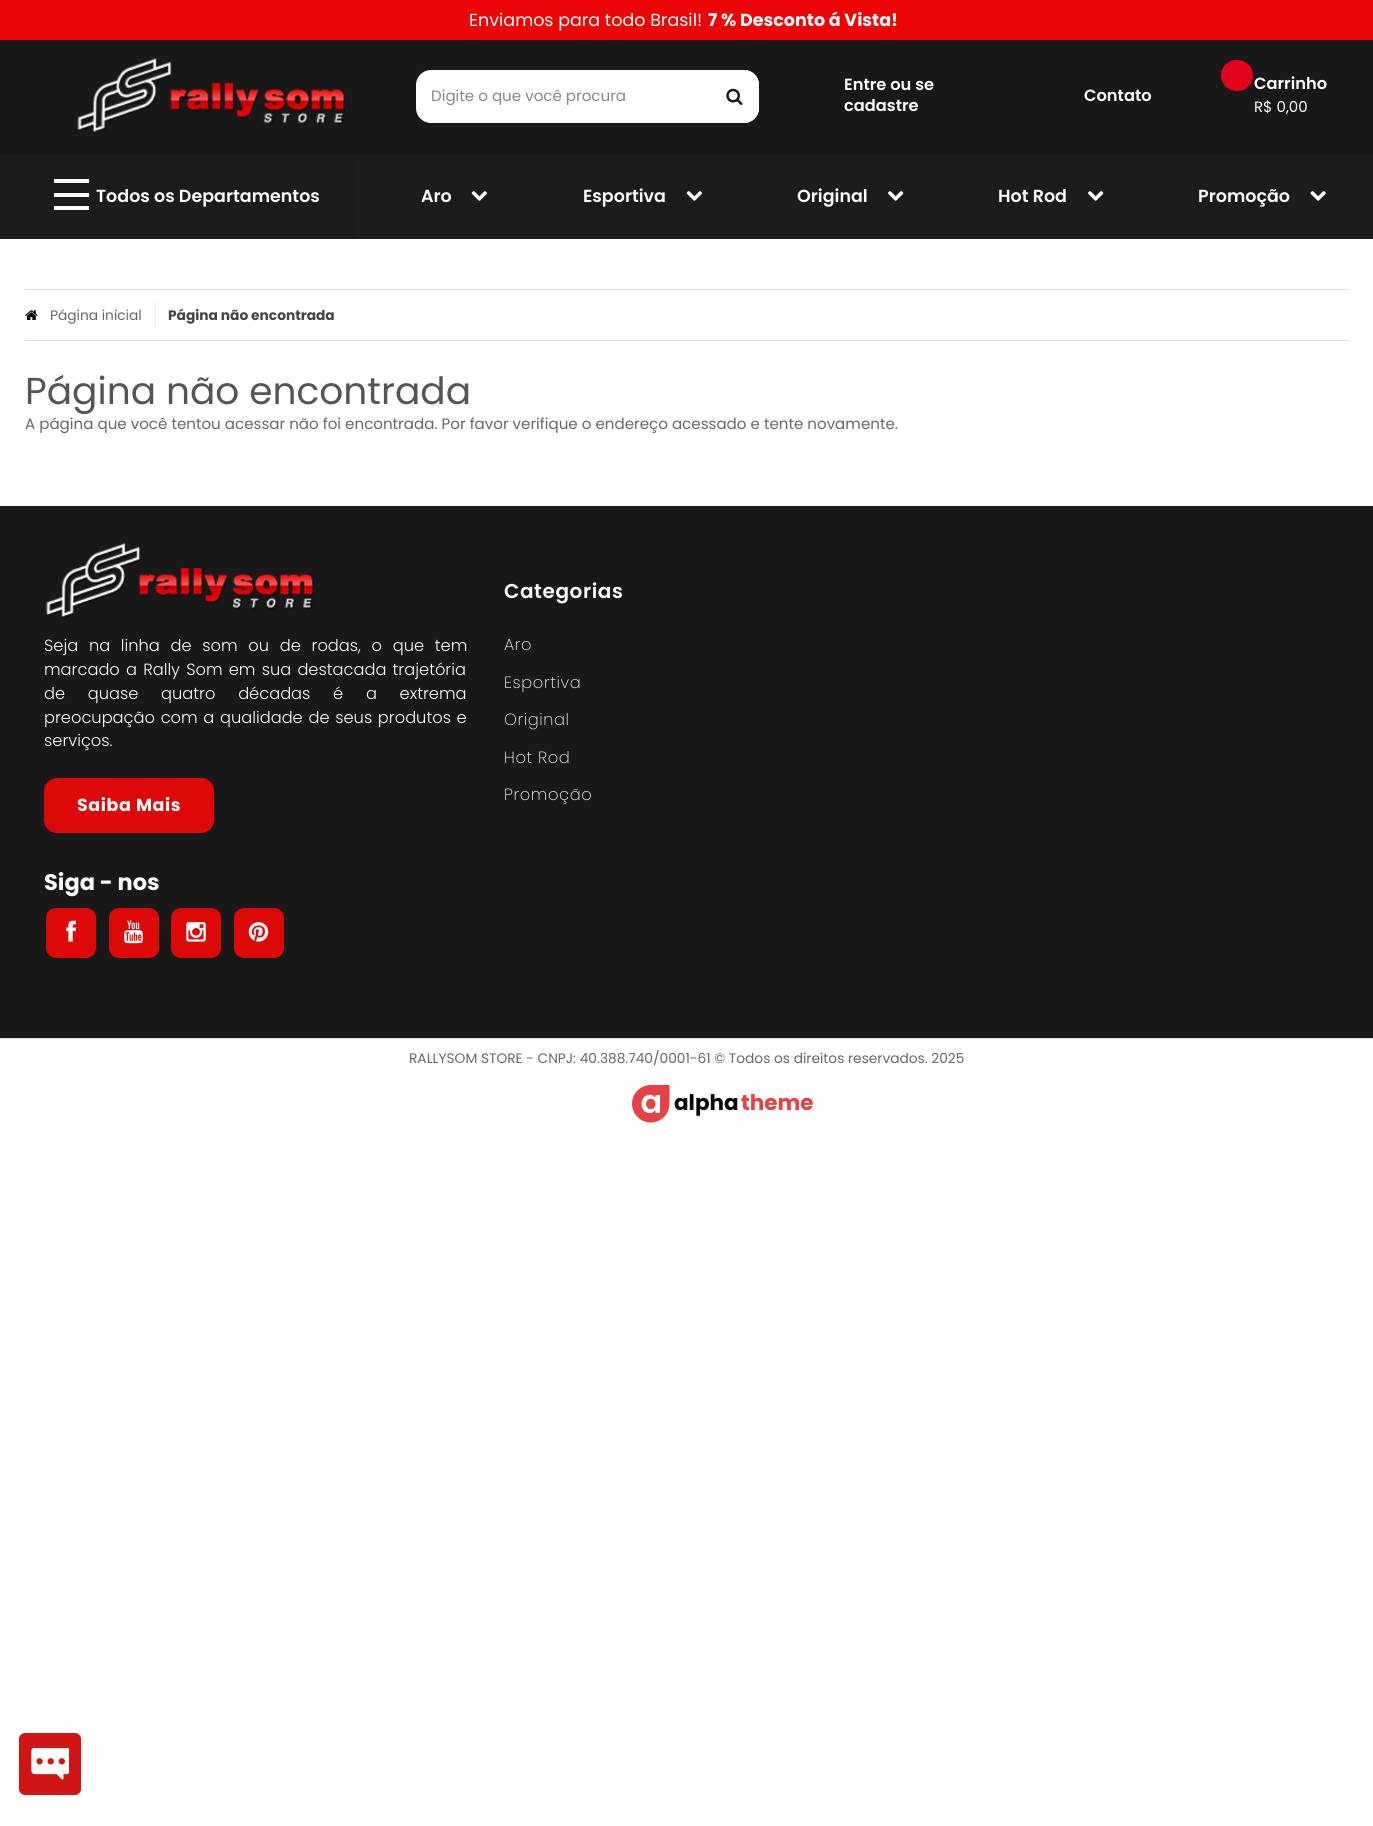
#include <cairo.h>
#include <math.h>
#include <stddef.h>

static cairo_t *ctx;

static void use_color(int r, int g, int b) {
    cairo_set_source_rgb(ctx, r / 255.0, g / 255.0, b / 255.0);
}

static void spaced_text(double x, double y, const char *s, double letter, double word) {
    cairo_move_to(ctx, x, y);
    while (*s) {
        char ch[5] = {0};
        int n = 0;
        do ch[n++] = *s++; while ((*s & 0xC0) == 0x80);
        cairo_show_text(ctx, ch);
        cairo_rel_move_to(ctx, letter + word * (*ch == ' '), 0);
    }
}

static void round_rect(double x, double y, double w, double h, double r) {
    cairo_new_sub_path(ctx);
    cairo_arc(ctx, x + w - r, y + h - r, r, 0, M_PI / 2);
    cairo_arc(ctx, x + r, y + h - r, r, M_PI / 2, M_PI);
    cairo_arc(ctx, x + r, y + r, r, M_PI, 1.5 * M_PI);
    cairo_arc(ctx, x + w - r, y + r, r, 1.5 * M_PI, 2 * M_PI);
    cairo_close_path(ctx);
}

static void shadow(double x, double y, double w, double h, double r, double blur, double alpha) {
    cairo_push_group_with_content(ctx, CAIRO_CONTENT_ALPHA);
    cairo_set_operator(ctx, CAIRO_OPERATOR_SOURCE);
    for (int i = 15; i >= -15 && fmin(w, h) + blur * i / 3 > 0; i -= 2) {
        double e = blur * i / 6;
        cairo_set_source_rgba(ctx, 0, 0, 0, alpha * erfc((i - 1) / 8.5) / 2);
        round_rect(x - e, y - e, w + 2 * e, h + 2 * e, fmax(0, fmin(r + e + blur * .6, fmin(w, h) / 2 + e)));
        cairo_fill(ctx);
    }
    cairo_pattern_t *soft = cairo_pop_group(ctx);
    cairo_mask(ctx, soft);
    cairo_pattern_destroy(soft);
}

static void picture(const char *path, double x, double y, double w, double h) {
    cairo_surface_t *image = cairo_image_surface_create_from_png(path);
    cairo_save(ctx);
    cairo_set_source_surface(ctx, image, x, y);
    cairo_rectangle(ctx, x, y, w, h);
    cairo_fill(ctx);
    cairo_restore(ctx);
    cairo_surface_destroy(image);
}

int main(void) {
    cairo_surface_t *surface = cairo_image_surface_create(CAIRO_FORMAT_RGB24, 1373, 1826);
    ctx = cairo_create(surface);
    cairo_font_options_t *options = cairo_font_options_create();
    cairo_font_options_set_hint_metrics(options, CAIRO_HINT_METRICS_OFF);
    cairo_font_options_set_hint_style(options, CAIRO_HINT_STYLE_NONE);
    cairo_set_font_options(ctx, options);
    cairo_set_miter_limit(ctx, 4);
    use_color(255, 255, 255);
    cairo_paint(ctx);
    use_color(26, 25, 25);
    cairo_rectangle(ctx, 0, 40, 1373, 113);
    cairo_fill(ctx);
    use_color(234, 6, 6);
    cairo_rectangle(ctx, 0, 0, 1373, 40);
    cairo_fill(ctx);
    cairo_select_font_face(ctx, "Poppins", CAIRO_FONT_SLANT_NORMAL, CAIRO_FONT_WEIGHT_NORMAL);
    cairo_set_font_size(ctx, 17.5);
    use_color(253, 252, 252);
    cairo_move_to(ctx, 469, 26);
    cairo_show_text(ctx, "Enviamos para todo Brasil!");
    cairo_select_font_face(ctx, "Poppins", CAIRO_FONT_SLANT_NORMAL, CAIRO_FONT_WEIGHT_BOLD);
    cairo_move_to(ctx, 708, 26);
    cairo_show_text(ctx, "7 % Desconto á Vista!");
    picture("img1.png", 76, 57, 269, 76);
    use_color(255, 255, 255);
    round_rect(416, 70, 343, 53, 15);
    cairo_fill(ctx);
    cairo_select_font_face(ctx, "Poppins", CAIRO_FONT_SLANT_NORMAL, CAIRO_FONT_WEIGHT_NORMAL);
    cairo_set_font_size(ctx, 15.1);
    use_color(134, 134, 134);
    cairo_move_to(ctx, 431, 101);
    cairo_show_text(ctx, "Digite o que você procura");
    cairo_save(ctx);
    round_rect(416, 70, 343, 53, 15);
    cairo_clip(ctx);
    use_color(255, 255, 255);
    shadow(685, 46, 96, 100, 36, 18, 1);
    cairo_restore(ctx);
    cairo_save(ctx);
    round_rect(416, 70, 343, 53, 15);
    cairo_clip(ctx);
    use_color(255, 255, 255);
    round_rect(714, 70, 49, 53, 13);
    cairo_fill(ctx);
    cairo_restore(ctx);
    picture("img2.png", 726, 88, 17, 17);
    cairo_select_font_face(ctx, "Poppins SemiBold", CAIRO_FONT_SLANT_NORMAL, CAIRO_FONT_WEIGHT_NORMAL);
    cairo_set_font_size(ctx, 16.25);
    use_color(253, 252, 252);
    cairo_move_to(ctx, 844, 90);
    cairo_show_text(ctx, "Entre ou se");
    cairo_move_to(ctx, 844, 111);
    cairo_show_text(ctx, "cadastre");
    cairo_move_to(ctx, 1084, 101);
    cairo_show_text(ctx, "Contato");
    use_color(226, 3, 26);
    round_rect(1221, 60, 32, 31, 15.5);
    cairo_fill(ctx);
    use_color(253, 252, 252);
    cairo_move_to(ctx, 1254, 89);
    cairo_show_text(ctx, "Carrinho");
    cairo_select_font_face(ctx, "Poppins", CAIRO_FONT_SLANT_NORMAL, CAIRO_FONT_WEIGHT_NORMAL);
    cairo_set_font_size(ctx, 15);
    cairo_move_to(ctx, 1254, 112);
    cairo_show_text(ctx, "R$ 0,00");
    use_color(29, 27, 27);
    cairo_rectangle(ctx, 0, 154, 1373, 85);
    cairo_fill(ctx);
    use_color(26, 25, 25);
    cairo_rectangle(ctx, 0, 153, 1373, 1);
    cairo_fill(ctx);
    cairo_rectangle(ctx, 353, 154, 1, 85);
    cairo_fill(ctx);
    use_color(255, 255, 255);
    cairo_rectangle(ctx, 54, 179, 35, 4);
    cairo_fill(ctx);
    cairo_rectangle(ctx, 54, 193, 35, 4);
    cairo_fill(ctx);
    cairo_rectangle(ctx, 54, 206, 35, 4);
    cairo_fill(ctx);
    cairo_select_font_face(ctx, "Poppins SemiBold", CAIRO_FONT_SLANT_NORMAL, CAIRO_FONT_WEIGHT_NORMAL);
    cairo_set_font_size(ctx, 17.5);
    use_color(253, 252, 252);
    cairo_move_to(ctx, 96, 202);
    cairo_show_text(ctx, "Todos os Departamentos");
    cairo_move_to(ctx, 421, 202);
    cairo_show_text(ctx, "Aro");
    picture("img3.png", 471, 191, 16, 10);
    cairo_move_to(ctx, 583, 202);
    cairo_show_text(ctx, "Esportiva");
    picture("img3.png", 686, 191, 16, 10);
    cairo_move_to(ctx, 797, 202);
    cairo_show_text(ctx, "Original");
    picture("img4.png", 888, 191, 16, 10);
    cairo_move_to(ctx, 998, 202);
    cairo_show_text(ctx, "Hot Rod");
    picture("img4.png", 1088, 191, 16, 10);
    cairo_move_to(ctx, 1198, 202);
    cairo_show_text(ctx, "Promoção");
    picture("img5.png", 1310, 191, 16, 10);
    use_color(222, 222, 222);
    cairo_rectangle(ctx, 25, 289, 1324, 1);
    cairo_fill(ctx);
    cairo_rectangle(ctx, 25, 340, 1324, 1);
    cairo_fill(ctx);
    picture("img6.png", 25, 310, 13, 10);
    cairo_select_font_face(ctx, "Poppins", CAIRO_FONT_SLANT_NORMAL, CAIRO_FONT_WEIGHT_NORMAL);
    cairo_set_font_size(ctx, 13.75);
    use_color(102, 102, 102);
    cairo_move_to(ctx, 50, 320);
    cairo_show_text(ctx, "Página inicial");
    use_color(230, 230, 230);
    cairo_rectangle(ctx, 155, 303, 1, 25);
    cairo_fill(ctx);
    cairo_select_font_face(ctx, "Poppins", CAIRO_FONT_SLANT_NORMAL, CAIRO_FONT_WEIGHT_BOLD);
    use_color(68, 68, 68);
    cairo_move_to(ctx, 168, 320);
    cairo_show_text(ctx, "Página não encontrada");
    cairo_select_font_face(ctx, "Poppins", CAIRO_FONT_SLANT_NORMAL, CAIRO_FONT_WEIGHT_NORMAL);
    cairo_set_font_size(ctx, 37.5);
    use_color(85, 85, 85);
    cairo_move_to(ctx, 25, 404);
    cairo_show_text(ctx, "Página não encontrada");
    cairo_set_font_size(ctx, 15.1);
    use_color(102, 102, 102);
    cairo_move_to(ctx, 25, 429);
    cairo_show_text(ctx, "A página que você tentou acessar não foi encontrada. Por favor verifique o endereço acessado e tente novamente.");
    use_color(26, 25, 25);
    cairo_rectangle(ctx, 0, 506, 1373, 532);
    cairo_fill(ctx);
    picture("img7.png", 45, 542, 269, 76);
    cairo_select_font_face(ctx, "Poppins Light", CAIRO_FONT_SLANT_NORMAL, CAIRO_FONT_WEIGHT_NORMAL);
    cairo_set_font_size(ctx, 16.25);
    use_color(253, 252, 252);
    spaced_text(44, 651, "Seja na linha de som ou de rodas, o que tem", 0, 6.25);
    spaced_text(44, 675, "marcado a Rally Som em sua destacada trajetória", 0, 1.75);
    spaced_text(44, 699, "de quase quatro décadas é a extrema", 0, 18.25);
    spaced_text(44, 723, "preocupação com a qualidade de seus produtos e", 0, 1.25);
    cairo_move_to(ctx, 44, 746);
    cairo_show_text(ctx, "serviços.");
    use_color(221, 8, 8);
    round_rect(44.5, 778.5, 169, 54, 12.5);
    cairo_fill_preserve(ctx);
    cairo_set_line_width(ctx, 1);
    cairo_stroke(ctx);
    cairo_select_font_face(ctx, "Poppins", CAIRO_FONT_SLANT_NORMAL, CAIRO_FONT_WEIGHT_BOLD);
    cairo_set_font_size(ctx, 17.5);
    use_color(253, 252, 252);
    spaced_text(77, 811, "Saiba Mais", 0.6, 0);
    cairo_set_font_size(ctx, 22.5);
    cairo_move_to(ctx, 44, 890);
    cairo_show_text(ctx, "Siga - nos");
    use_color(221, 8, 8);
    round_rect(46, 908, 50, 50, 10);
    cairo_fill(ctx);
    picture("img8.png", 66, 920, 10, 22);
    round_rect(109, 908, 50, 50, 10);
    cairo_fill(ctx);
    picture("img9.png", 124, 920, 19, 24);
    round_rect(171, 908, 50, 50, 10);
    cairo_fill(ctx);
    picture("img10.png", 186, 922, 20, 20);
    round_rect(234, 908, 50, 50, 10);
    cairo_fill(ctx);
    picture("img11.png", 248, 922, 21, 20);
    cairo_select_font_face(ctx, "Poppins SemiBold", CAIRO_FONT_SLANT_NORMAL, CAIRO_FONT_WEIGHT_NORMAL);
    cairo_set_font_size(ctx, 20);
    use_color(253, 252, 252);
    spaced_text(504, 598, "Categorias", 0.6, 0);
    cairo_select_font_face(ctx, "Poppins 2 Light", CAIRO_FONT_SLANT_NORMAL, CAIRO_FONT_WEIGHT_NORMAL);
    cairo_set_font_size(ctx, 16.25);
    spaced_text(504, 650, "Aro", 0.6, 0);
    spaced_text(504, 688, "Esportiva", 0.6, 0);
    spaced_text(504, 725, "Original", 0.6, 0);
    spaced_text(504, 763, "Hot Rod", 0.6, 0);
    spaced_text(504, 800, "Promoção", 0.6, 0);
    use_color(221, 221, 221);
    cairo_rectangle(ctx, 0, 1038, 1373, 1);
    cairo_fill(ctx);
    cairo_select_font_face(ctx, "Poppins", CAIRO_FONT_SLANT_NORMAL, CAIRO_FONT_WEIGHT_NORMAL);
    cairo_set_font_size(ctx, 13.75);
    use_color(102, 102, 102);
    cairo_move_to(ctx, 409, 1063);
    cairo_show_text(ctx, "RALLYSOM STORE - CNPJ: 40.388.740/0001-61 © Todos os direitos reservados. 2025");
    picture("img12.png", 632, 1085, 38, 38);
    cairo_select_font_face(ctx, "Poppins", CAIRO_FONT_SLANT_NORMAL, CAIRO_FONT_WEIGHT_BOLD);
    cairo_set_font_size(ctx, 21.5);
    use_color(10, 10, 10);
    cairo_move_to(ctx, 674, 1110);
    cairo_show_text(ctx, "alpha");
    use_color(229, 67, 67);
    cairo_move_to(ctx, 741, 1110);
    cairo_show_text(ctx, "theme");
    use_color(209, 21, 21);
    round_rect(19.5, 1733.5, 61, 61, 5.5);
    cairo_fill_preserve(ctx);
    cairo_stroke(ctx);
    picture("img13.png", 31, 1748, 38, 32);
    cairo_surface_write_to_png(surface, "result.png");
    cairo_font_options_destroy(options);
    cairo_destroy(ctx);
    cairo_surface_destroy(surface);
    return 0;
}
